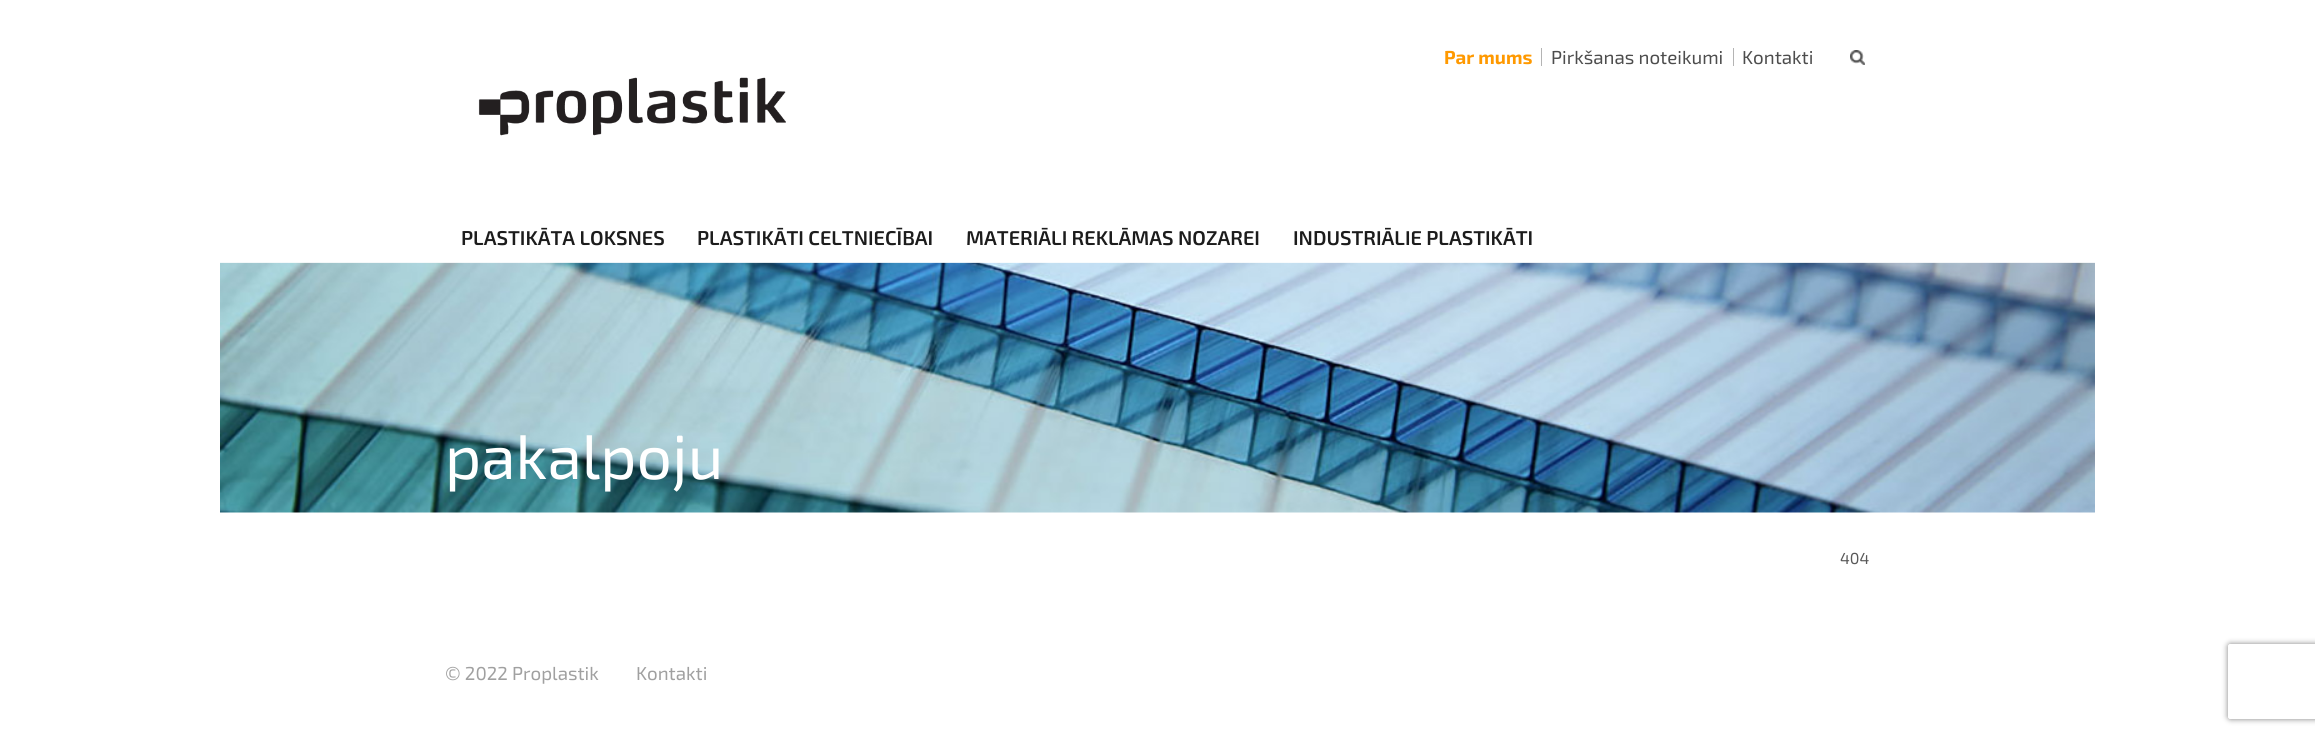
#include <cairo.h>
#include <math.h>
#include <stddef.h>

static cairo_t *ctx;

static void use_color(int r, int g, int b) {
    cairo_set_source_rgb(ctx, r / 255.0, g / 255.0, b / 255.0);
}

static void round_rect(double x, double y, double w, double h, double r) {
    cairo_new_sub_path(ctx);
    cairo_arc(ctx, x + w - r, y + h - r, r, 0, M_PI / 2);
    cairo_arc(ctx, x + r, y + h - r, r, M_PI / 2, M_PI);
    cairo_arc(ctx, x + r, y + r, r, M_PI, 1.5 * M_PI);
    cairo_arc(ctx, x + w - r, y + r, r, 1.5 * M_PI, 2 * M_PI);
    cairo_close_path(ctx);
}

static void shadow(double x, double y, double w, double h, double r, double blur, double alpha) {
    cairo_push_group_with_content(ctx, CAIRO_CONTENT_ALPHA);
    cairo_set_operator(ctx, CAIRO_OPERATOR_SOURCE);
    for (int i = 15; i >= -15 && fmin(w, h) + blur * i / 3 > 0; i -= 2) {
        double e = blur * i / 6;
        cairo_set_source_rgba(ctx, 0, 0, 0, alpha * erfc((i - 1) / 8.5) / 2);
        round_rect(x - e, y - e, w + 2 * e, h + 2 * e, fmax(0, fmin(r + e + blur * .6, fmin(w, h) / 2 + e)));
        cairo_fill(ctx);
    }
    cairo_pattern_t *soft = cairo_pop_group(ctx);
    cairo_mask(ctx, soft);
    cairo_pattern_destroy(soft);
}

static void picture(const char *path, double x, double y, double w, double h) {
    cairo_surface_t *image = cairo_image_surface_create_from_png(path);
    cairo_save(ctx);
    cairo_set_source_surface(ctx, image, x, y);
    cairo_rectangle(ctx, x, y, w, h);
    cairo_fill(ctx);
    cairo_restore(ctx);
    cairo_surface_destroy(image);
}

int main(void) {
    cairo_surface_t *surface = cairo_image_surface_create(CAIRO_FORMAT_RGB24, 2315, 736);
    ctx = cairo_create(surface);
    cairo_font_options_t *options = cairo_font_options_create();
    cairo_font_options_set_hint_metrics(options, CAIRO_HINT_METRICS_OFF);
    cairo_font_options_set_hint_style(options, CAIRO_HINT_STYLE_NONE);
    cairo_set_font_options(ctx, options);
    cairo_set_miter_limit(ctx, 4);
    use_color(255, 255, 255);
    cairo_paint(ctx);
    cairo_select_font_face(ctx, "Exo 2", CAIRO_FONT_SLANT_NORMAL, CAIRO_FONT_WEIGHT_BOLD);
    cairo_set_font_size(ctx, 18.75);
    use_color(255, 153, 0);
    cairo_move_to(ctx, 1444, 64);
    cairo_show_text(ctx, "Par mums");
    use_color(180, 180, 180);
    cairo_rectangle(ctx, 1541, 48, 1, 18);
    cairo_fill(ctx);
    cairo_select_font_face(ctx, "Exo 2", CAIRO_FONT_SLANT_NORMAL, CAIRO_FONT_WEIGHT_NORMAL);
    use_color(77, 77, 77);
    cairo_move_to(ctx, 1551, 64);
    cairo_show_text(ctx, "Pirkšanas noteikumi");
    use_color(180, 180, 180);
    cairo_rectangle(ctx, 1733, 48, 1, 18);
    cairo_fill(ctx);
    use_color(77, 77, 77);
    cairo_move_to(ctx, 1742, 64);
    cairo_show_text(ctx, "Kontakti");
    picture("img1.png", 1850, 50, 15, 15);
    picture("img2.png", 478, 77, 308, 59);
    picture("img3.png", 220, 262, 1875, 251);
    cairo_set_source_rgba(ctx, 1, 1, 1, 0.75);
    cairo_rectangle(ctx, 220, 262, 1875, 1);
    cairo_fill(ctx);
    cairo_select_font_face(ctx, "Exo 2 SemiBold", CAIRO_FONT_SLANT_NORMAL, CAIRO_FONT_WEIGHT_NORMAL);
    cairo_set_font_size(ctx, 20);
    use_color(28, 28, 28);
    cairo_move_to(ctx, 461, 245);
    cairo_show_text(ctx, "PLASTIKĀTA LOKSNES");
    cairo_move_to(ctx, 697, 245);
    cairo_show_text(ctx, "PLASTIKĀTI CELTNIECĪBAI");
    cairo_move_to(ctx, 966, 245);
    cairo_show_text(ctx, "MATERIĀLI REKLĀMAS NOZAREI");
    cairo_move_to(ctx, 1293, 245);
    cairo_show_text(ctx, "INDUSTRIĀLIE PLASTIKĀTI");
    cairo_select_font_face(ctx, "Exo 2", CAIRO_FONT_SLANT_NORMAL, CAIRO_FONT_WEIGHT_NORMAL);
    cairo_set_font_size(ctx, 62.5);
    use_color(255, 255, 255);
    cairo_move_to(ctx, 445, 479);
    cairo_show_text(ctx, "pakalpoju");
    cairo_set_font_size(ctx, 16);
    use_color(89, 89, 89);
    cairo_move_to(ctx, 1840, 564);
    cairo_show_text(ctx, "404");
    cairo_set_font_size(ctx, 18.75);
    use_color(160, 160, 160);
    cairo_move_to(ctx, 445, 680);
    cairo_show_text(ctx, "© 2022 Proplastik");
    cairo_move_to(ctx, 636, 680);
    cairo_show_text(ctx, "Kontakti");
    cairo_save(ctx);
    cairo_set_fill_rule(ctx, CAIRO_FILL_RULE_EVEN_ODD);
    cairo_new_path(ctx);
    cairo_move_to(ctx, 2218, 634);
    cairo_line_to(ctx, 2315, 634);
    cairo_line_to(ctx, 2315, 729);
    cairo_line_to(ctx, 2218, 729);
    cairo_close_path(ctx);
    cairo_move_to(ctx, 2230.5, 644);
    cairo_line_to(ctx, 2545.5, 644);
    cairo_curve_to(ctx, 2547, 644, 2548, 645, 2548, 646.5);
    cairo_line_to(ctx, 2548, 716.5);
    cairo_curve_to(ctx, 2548, 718, 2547, 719, 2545.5, 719);
    cairo_line_to(ctx, 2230.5, 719);
    cairo_curve_to(ctx, 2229, 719, 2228, 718, 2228, 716.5);
    cairo_line_to(ctx, 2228, 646.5);
    cairo_curve_to(ctx, 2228, 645, 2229, 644, 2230.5, 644);
    cairo_close_path(ctx);
    cairo_clip(ctx);
    use_color(128, 128, 128);
    shadow(2228, 644, 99, 75, 2.5, 3, 1);
    cairo_restore(ctx);
    cairo_surface_write_to_png(surface, "result.png");
    cairo_font_options_destroy(options);
    cairo_destroy(ctx);
    cairo_surface_destroy(surface);
    return 0;
}
